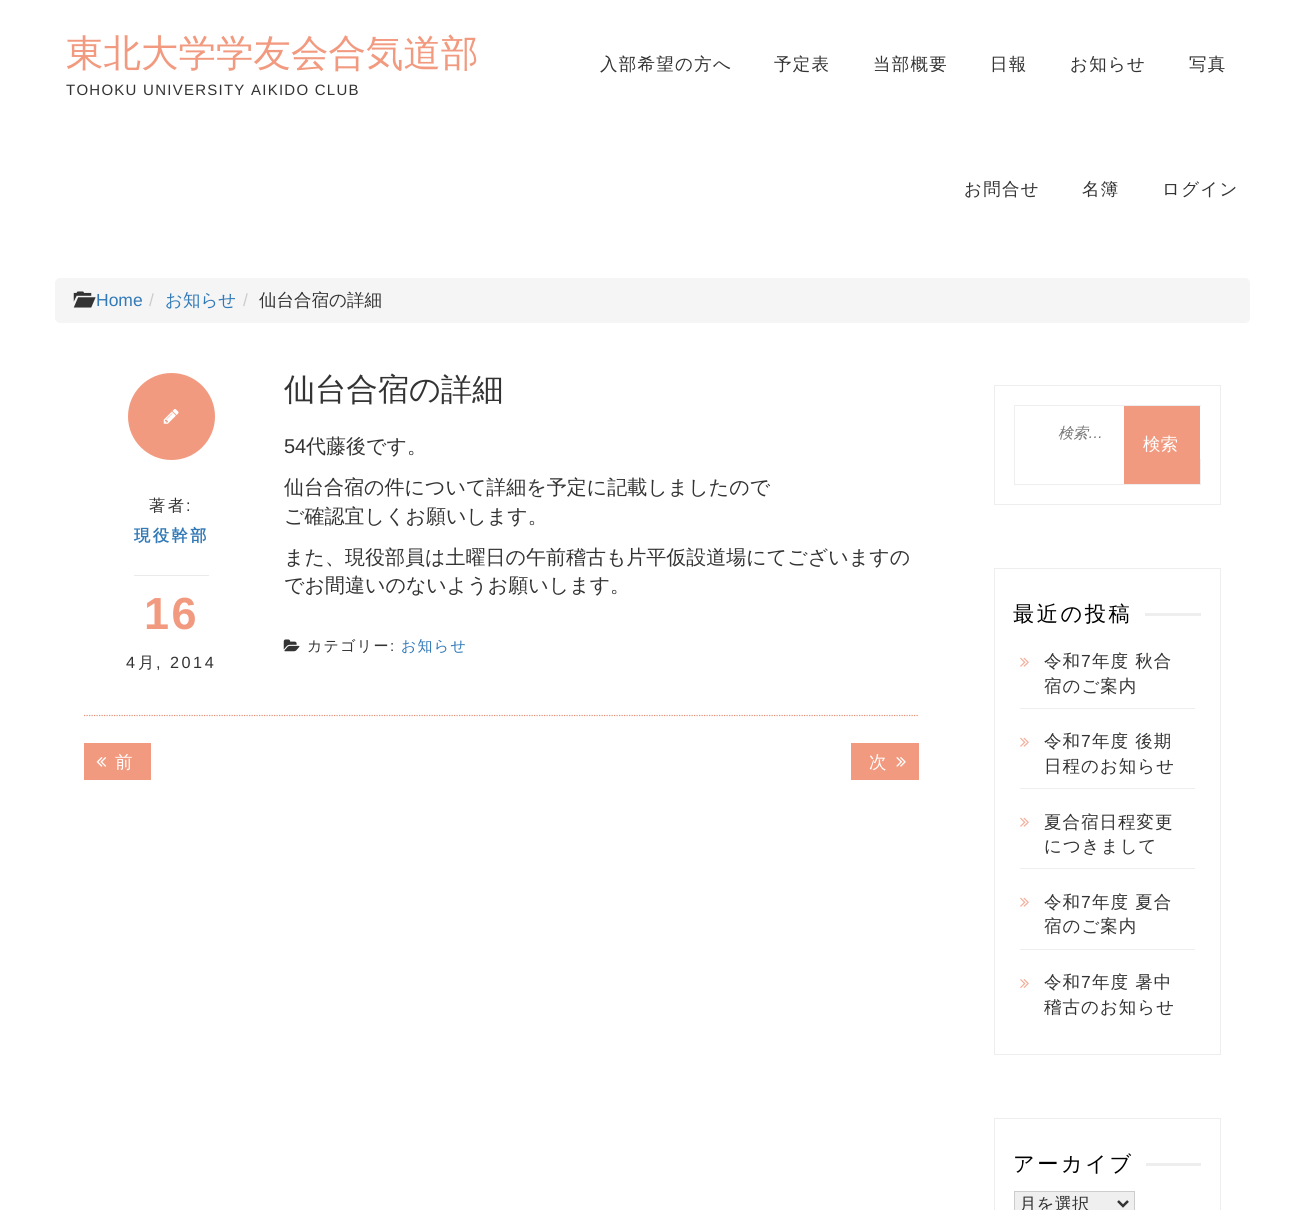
#include <cairo.h>
#include <math.h>
#include <stddef.h>

static cairo_t *ctx;

static void use_color(int r, int g, int b) {
    cairo_set_source_rgb(ctx, r / 255.0, g / 255.0, b / 255.0);
}

static void spaced_text(double x, double y, const char *s, double letter, double word) {
    cairo_move_to(ctx, x, y);
    while (*s) {
        char ch[5] = {0};
        int n = 0;
        do ch[n++] = *s++; while ((*s & 0xC0) == 0x80);
        cairo_show_text(ctx, ch);
        cairo_rel_move_to(ctx, letter + word * (*ch == ' '), 0);
    }
}

static void round_rect(double x, double y, double w, double h, double r) {
    cairo_new_sub_path(ctx);
    cairo_arc(ctx, x + w - r, y + h - r, r, 0, M_PI / 2);
    cairo_arc(ctx, x + r, y + h - r, r, M_PI / 2, M_PI);
    cairo_arc(ctx, x + r, y + r, r, M_PI, 1.5 * M_PI);
    cairo_arc(ctx, x + w - r, y + r, r, 1.5 * M_PI, 2 * M_PI);
    cairo_close_path(ctx);
}

static void picture(const char *path, double x, double y, double w, double h) {
    cairo_surface_t *image = cairo_image_surface_create_from_png(path);
    cairo_save(ctx);
    cairo_set_source_surface(ctx, image, x, y);
    cairo_rectangle(ctx, x, y, w, h);
    cairo_fill(ctx);
    cairo_restore(ctx);
    cairo_surface_destroy(image);
}

int main(void) {
    cairo_surface_t *surface = cairo_image_surface_create(CAIRO_FORMAT_RGB24, 1304, 1210);
    ctx = cairo_create(surface);
    cairo_font_options_t *options = cairo_font_options_create();
    cairo_font_options_set_hint_metrics(options, CAIRO_HINT_METRICS_OFF);
    cairo_font_options_set_hint_style(options, CAIRO_HINT_STYLE_NONE);
    cairo_set_font_options(ctx, options);
    cairo_set_miter_limit(ctx, 4);
    use_color(255, 255, 255);
    cairo_paint(ctx);
    cairo_select_font_face(ctx, "WenQuanYi Zen Hei Medium", CAIRO_FONT_SLANT_NORMAL, CAIRO_FONT_WEIGHT_NORMAL);
    cairo_set_font_size(ctx, 37.5);
    use_color(242, 154, 127);
    cairo_move_to(ctx, 66, 66);
    cairo_show_text(ctx, "東北大学学友会合気道部");
    cairo_select_font_face(ctx, "Liberation Sans", CAIRO_FONT_SLANT_NORMAL, CAIRO_FONT_WEIGHT_NORMAL);
    cairo_set_font_size(ctx, 15);
    use_color(51, 51, 51);
    spaced_text(66, 95, "TOHOKU UNIVERSITY AIKIDO CLUB", 1.25, 0);
    cairo_select_font_face(ctx, "WenQuanYi Zen Hei Medium", CAIRO_FONT_SLANT_NORMAL, CAIRO_FONT_WEIGHT_NORMAL);
    cairo_set_font_size(ctx, 17.5);
    spaced_text(600, 70, "入部希望の方へ", 1.25, 0);
    spaced_text(774, 70, "予定表", 1.25, 0);
    spaced_text(873, 70, "当部概要", 1.25, 0);
    spaced_text(990, 70, "日報", 1.25, 0);
    spaced_text(1070, 70, "お知らせ", 1.25, 0);
    spaced_text(1189, 70, "写真", 1.25, 0);
    spaced_text(964, 195, "お問合せ", 1.25, 0);
    spaced_text(1082, 195, "名簿", 1.25, 0);
    spaced_text(1162, 195, "ログイン", 1.25, 0);
    use_color(245, 245, 245);
    round_rect(55, 278, 1195, 45, 5);
    cairo_fill(ctx);
    picture("img1.png", 73, 291, 23, 17);
    cairo_select_font_face(ctx, "Liberation Sans", CAIRO_FONT_SLANT_NORMAL, CAIRO_FONT_WEIGHT_NORMAL);
    use_color(51, 122, 183);
    cairo_move_to(ctx, 96, 306);
    cairo_show_text(ctx, "Home");
    use_color(204, 204, 204);
    cairo_move_to(ctx, 149, 306);
    cairo_show_text(ctx, "/");
    cairo_select_font_face(ctx, "WenQuanYi Zen Hei Medium", CAIRO_FONT_SLANT_NORMAL, CAIRO_FONT_WEIGHT_NORMAL);
    use_color(51, 122, 183);
    cairo_move_to(ctx, 165, 306);
    cairo_show_text(ctx, "お知らせ");
    cairo_select_font_face(ctx, "Liberation Sans", CAIRO_FONT_SLANT_NORMAL, CAIRO_FONT_WEIGHT_NORMAL);
    use_color(204, 204, 204);
    cairo_move_to(ctx, 243, 306);
    cairo_show_text(ctx, "/");
    cairo_select_font_face(ctx, "WenQuanYi Zen Hei Medium", CAIRO_FONT_SLANT_NORMAL, CAIRO_FONT_WEIGHT_NORMAL);
    use_color(51, 51, 51);
    cairo_move_to(ctx, 259, 306);
    cairo_show_text(ctx, "仙台合宿の詳細");
    cairo_new_path(ctx);
    cairo_move_to(ctx, 84, 715.5);
    cairo_line_to(ctx, 919, 715.5);
    use_color(233, 145, 118);
    cairo_set_line_width(ctx, 1.2);
    cairo_set_dash(ctx, (double[]){1.25, 1.25}, 2, 0);
    cairo_stroke(ctx);
    cairo_set_font_size(ctx, 31.25);
    use_color(51, 51, 51);
    cairo_move_to(ctx, 284, 400);
    cairo_show_text(ctx, "仙台合宿の詳細");
    use_color(242, 154, 127);
    cairo_new_path(ctx);
    cairo_arc(ctx, 171.5, 416.5, 43.5, 0, 2 * M_PI);
    cairo_fill(ctx);
    picture("img2.png", 163, 409, 16, 15);
    use_color(234, 234, 234);
    cairo_rectangle(ctx, 134, 575, 75, 1);
    cairo_fill(ctx);
    cairo_set_font_size(ctx, 16.25);
    use_color(51, 51, 51);
    spaced_text(149, 511, "著者", 2.5, 0);
    cairo_select_font_face(ctx, "Liberation Sans", CAIRO_FONT_SLANT_NORMAL, CAIRO_FONT_WEIGHT_NORMAL);
    spaced_text(186, 511, ":", 2.5, 0);
    cairo_select_font_face(ctx, "WenQuanYi Zen Hei", CAIRO_FONT_SLANT_NORMAL, CAIRO_FONT_WEIGHT_BOLD);
    use_color(51, 122, 183);
    spaced_text(134, 541, "現役幹部", 2.5, 0);
    cairo_select_font_face(ctx, "Liberation Sans", CAIRO_FONT_SLANT_NORMAL, CAIRO_FONT_WEIGHT_BOLD);
    cairo_set_font_size(ctx, 45);
    use_color(242, 154, 127);
    spaced_text(144, 629, "16", 2.5, 0);
    cairo_select_font_face(ctx, "Liberation Sans", CAIRO_FONT_SLANT_NORMAL, CAIRO_FONT_WEIGHT_NORMAL);
    cairo_set_font_size(ctx, 16.25);
    use_color(51, 51, 51);
    spaced_text(126, 668, "4", 2.5, 0);
    cairo_select_font_face(ctx, "WenQuanYi Zen Hei Medium", CAIRO_FONT_SLANT_NORMAL, CAIRO_FONT_WEIGHT_NORMAL);
    spaced_text(138, 668, "月", 2.5, 0);
    cairo_select_font_face(ctx, "Liberation Sans", CAIRO_FONT_SLANT_NORMAL, CAIRO_FONT_WEIGHT_NORMAL);
    spaced_text(156, 668, ", 2014", 2.5, 0);
    cairo_set_font_size(ctx, 20);
    cairo_move_to(ctx, 284, 453);
    cairo_show_text(ctx, "54");
    cairo_select_font_face(ctx, "WenQuanYi Zen Hei Medium", CAIRO_FONT_SLANT_NORMAL, CAIRO_FONT_WEIGHT_NORMAL);
    cairo_move_to(ctx, 306, 453);
    cairo_show_text(ctx, "代藤後です。");
    cairo_move_to(ctx, 284, 494);
    cairo_show_text(ctx, "仙台合宿の件について詳細を予定に記載しましたので");
    cairo_move_to(ctx, 284, 523);
    cairo_show_text(ctx, "ご確認宜しくお願いします。");
    cairo_move_to(ctx, 284, 564);
    cairo_show_text(ctx, "また、現役部員は土曜日の午前稽古も片平仮設道場にてございますの");
    cairo_move_to(ctx, 284, 592);
    cairo_show_text(ctx, "でお間違いのないようお願いします。");
    picture("img3.png", 283, 639, 17, 13);
    cairo_set_font_size(ctx, 15);
    spaced_text(307, 651, "カテゴリー", 1.25, 0);
    cairo_select_font_face(ctx, "Liberation Sans", CAIRO_FONT_SLANT_NORMAL, CAIRO_FONT_WEIGHT_NORMAL);
    spaced_text(390, 651, ":", 1.25, 0);
    cairo_select_font_face(ctx, "WenQuanYi Zen Hei Medium", CAIRO_FONT_SLANT_NORMAL, CAIRO_FONT_WEIGHT_NORMAL);
    use_color(51, 122, 183);
    spaced_text(401, 651, "お知らせ", 1.25, 0);
    use_color(242, 154, 127);
    cairo_rectangle(ctx, 84, 743, 67, 37);
    cairo_fill(ctx);
    picture("img4.png", 96, 757, 11, 10);
    cairo_set_font_size(ctx, 17.5);
    use_color(255, 255, 255);
    cairo_move_to(ctx, 115, 768);
    cairo_show_text(ctx, "前");
    use_color(242, 154, 127);
    cairo_rectangle(ctx, 851, 743, 68, 37);
    cairo_fill(ctx);
    use_color(255, 255, 255);
    cairo_move_to(ctx, 869, 768);
    cairo_show_text(ctx, "次");
    picture("img5.png", 896, 757, 10, 10);
    cairo_rectangle(ctx, 994.5, 385.5, 226, 119);
    use_color(238, 238, 238);
    cairo_set_line_width(ctx, 1);
    cairo_set_dash(ctx, NULL, 0, 0);
    cairo_stroke(ctx);
    cairo_rectangle(ctx, 1014.5, 405.5, 186, 79);
    cairo_stroke(ctx);
    use_color(255, 255, 255);
    cairo_rectangle(ctx, 1200, 406, 1, 53);
    cairo_fill(ctx);
    cairo_select_font_face(ctx, "WenQuanYi Zen Hei Medium", CAIRO_FONT_SLANT_ITALIC, CAIRO_FONT_WEIGHT_NORMAL);
    cairo_set_font_size(ctx, 15);
    use_color(117, 117, 117);
    cairo_move_to(ctx, 1058, 438);
    cairo_show_text(ctx, "検索");
    cairo_select_font_face(ctx, "Liberation Sans", CAIRO_FONT_SLANT_ITALIC, CAIRO_FONT_WEIGHT_NORMAL);
    cairo_move_to(ctx, 1088, 438);
    cairo_show_text(ctx, "…");
    use_color(242, 154, 127);
    cairo_rectangle(ctx, 1124, 406, 76, 78);
    cairo_fill(ctx);
    cairo_select_font_face(ctx, "WenQuanYi Zen Hei Medium", CAIRO_FONT_SLANT_NORMAL, CAIRO_FONT_WEIGHT_NORMAL);
    cairo_set_font_size(ctx, 17.5);
    use_color(255, 255, 255);
    cairo_move_to(ctx, 1143, 450);
    cairo_show_text(ctx, "検索");
    cairo_rectangle(ctx, 994.5, 568.5, 226, 486);
    use_color(238, 238, 238);
    cairo_stroke(ctx);
    cairo_set_font_size(ctx, 21.25);
    use_color(0, 0, 0);
    spaced_text(1013, 621, "最近の投稿", 2.5, 0);
    use_color(238, 238, 238);
    cairo_rectangle(ctx, 1145, 613, 56, 3);
    cairo_fill(ctx);
    cairo_rectangle(ctx, 1020, 708, 175, 1);
    cairo_fill(ctx);
    picture("img6.png", 1020, 657, 9, 10);
    cairo_set_font_size(ctx, 17.5);
    use_color(51, 51, 51);
    spaced_text(1044, 667, "令和", 1, 0);
    cairo_select_font_face(ctx, "Liberation Sans", CAIRO_FONT_SLANT_NORMAL, CAIRO_FONT_WEIGHT_NORMAL);
    spaced_text(1081, 667, "7", 1, 0);
    cairo_select_font_face(ctx, "WenQuanYi Zen Hei Medium", CAIRO_FONT_SLANT_NORMAL, CAIRO_FONT_WEIGHT_NORMAL);
    spaced_text(1092, 667, "年度 秋合", 1, 0);
    spaced_text(1044, 692, "宿のご案内", 1, 0);
    use_color(238, 238, 238);
    cairo_rectangle(ctx, 1020, 788, 175, 1);
    cairo_fill(ctx);
    picture("img6.png", 1020, 737, 9, 10);
    use_color(51, 51, 51);
    spaced_text(1044, 747, "令和", 1, 0);
    cairo_select_font_face(ctx, "Liberation Sans", CAIRO_FONT_SLANT_NORMAL, CAIRO_FONT_WEIGHT_NORMAL);
    spaced_text(1081, 747, "7", 1, 0);
    cairo_select_font_face(ctx, "WenQuanYi Zen Hei Medium", CAIRO_FONT_SLANT_NORMAL, CAIRO_FONT_WEIGHT_NORMAL);
    spaced_text(1092, 747, "年度 後期", 1, 0);
    spaced_text(1044, 772, "日程のお知らせ", 1, 0);
    use_color(238, 238, 238);
    cairo_rectangle(ctx, 1020, 868, 175, 1);
    cairo_fill(ctx);
    picture("img6.png", 1020, 817, 9, 10);
    use_color(51, 51, 51);
    spaced_text(1044, 828, "夏合宿日程変更", 1, 0);
    spaced_text(1044, 852, "につきまして", 1, 0);
    use_color(238, 238, 238);
    cairo_rectangle(ctx, 1020, 949, 175, 1);
    cairo_fill(ctx);
    picture("img6.png", 1020, 897, 9, 10);
    use_color(51, 51, 51);
    spaced_text(1044, 908, "令和", 1, 0);
    cairo_select_font_face(ctx, "Liberation Sans", CAIRO_FONT_SLANT_NORMAL, CAIRO_FONT_WEIGHT_NORMAL);
    spaced_text(1081, 908, "7", 1, 0);
    cairo_select_font_face(ctx, "WenQuanYi Zen Hei Medium", CAIRO_FONT_SLANT_NORMAL, CAIRO_FONT_WEIGHT_NORMAL);
    spaced_text(1092, 908, "年度 夏合", 1, 0);
    spaced_text(1044, 932, "宿のご案内", 1, 0);
    picture("img7.png", 1020, 979, 9, 9);
    spaced_text(1044, 988, "令和", 1, 0);
    cairo_select_font_face(ctx, "Liberation Sans", CAIRO_FONT_SLANT_NORMAL, CAIRO_FONT_WEIGHT_NORMAL);
    spaced_text(1081, 988, "7", 1, 0);
    cairo_select_font_face(ctx, "WenQuanYi Zen Hei Medium", CAIRO_FONT_SLANT_NORMAL, CAIRO_FONT_WEIGHT_NORMAL);
    spaced_text(1092, 988, "年度 暑中", 1, 0);
    spaced_text(1044, 1013, "稽古のお知らせ", 1, 0);
    cairo_rectangle(ctx, 994.5, 1118.5, 226, 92);
    use_color(238, 238, 238);
    cairo_stroke(ctx);
    cairo_set_font_size(ctx, 21.25);
    use_color(0, 0, 0);
    spaced_text(1013, 1171, "アーカイブ", 2.5, 0);
    use_color(238, 238, 238);
    cairo_rectangle(ctx, 1146, 1163, 55, 3);
    cairo_fill(ctx);
    use_color(239, 239, 239);
    cairo_rectangle(ctx, 1014.5, 1191.5, 120, 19);
    cairo_fill_preserve(ctx);
    use_color(204, 204, 204);
    cairo_stroke(ctx);
    cairo_new_path(ctx);
    cairo_move_to(ctx, 1118, 1201);
    cairo_line_to(ctx, 1123, 1206);
    cairo_line_to(ctx, 1128, 1201);
    use_color(51, 51, 51);
    cairo_set_line_width(ctx, 2.5);
    cairo_stroke(ctx);
    cairo_set_font_size(ctx, 17.5);
    cairo_move_to(ctx, 1019, 1210);
    cairo_show_text(ctx, "月を選択");
    cairo_surface_write_to_png(surface, "result.png");
    cairo_font_options_destroy(options);
    cairo_destroy(ctx);
    cairo_surface_destroy(surface);
    return 0;
}
